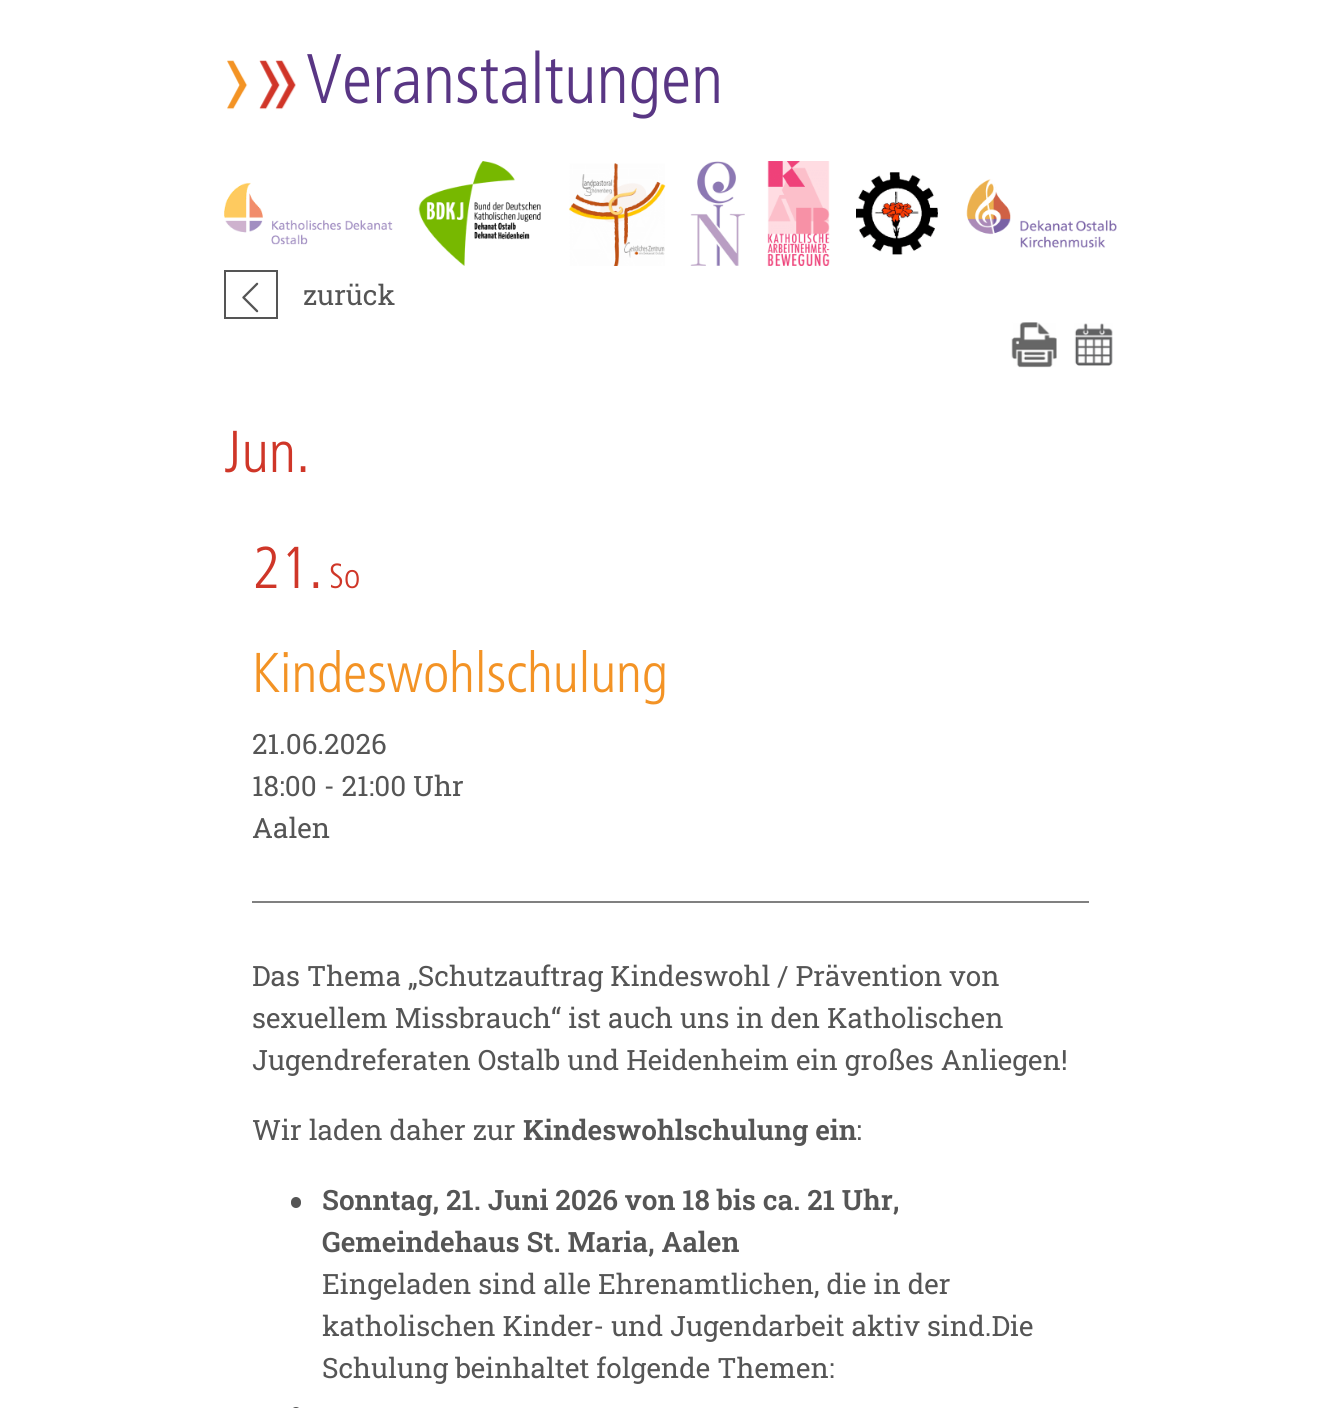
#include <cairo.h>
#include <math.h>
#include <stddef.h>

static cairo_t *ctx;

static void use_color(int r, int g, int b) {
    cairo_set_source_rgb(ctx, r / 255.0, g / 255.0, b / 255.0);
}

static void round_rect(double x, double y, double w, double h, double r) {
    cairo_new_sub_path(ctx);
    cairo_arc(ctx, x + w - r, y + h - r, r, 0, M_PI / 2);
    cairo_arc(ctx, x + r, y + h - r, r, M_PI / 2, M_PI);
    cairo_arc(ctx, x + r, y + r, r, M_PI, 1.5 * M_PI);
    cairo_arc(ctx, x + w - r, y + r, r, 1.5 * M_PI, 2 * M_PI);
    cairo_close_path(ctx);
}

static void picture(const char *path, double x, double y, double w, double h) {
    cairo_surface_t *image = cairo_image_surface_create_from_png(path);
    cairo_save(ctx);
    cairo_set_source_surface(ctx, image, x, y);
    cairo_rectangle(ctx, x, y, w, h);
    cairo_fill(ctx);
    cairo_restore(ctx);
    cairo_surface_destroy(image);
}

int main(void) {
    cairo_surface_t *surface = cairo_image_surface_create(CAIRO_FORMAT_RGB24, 1340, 1408);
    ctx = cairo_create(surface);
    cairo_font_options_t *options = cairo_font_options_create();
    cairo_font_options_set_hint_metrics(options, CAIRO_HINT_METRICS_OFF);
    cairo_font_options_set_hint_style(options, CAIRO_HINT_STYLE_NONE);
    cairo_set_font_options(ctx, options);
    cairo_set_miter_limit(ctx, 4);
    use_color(255, 255, 255);
    cairo_paint(ctx);
    picture("img1.png", 227, 60, 69, 50);
    cairo_select_font_face(ctx, "frutiger Light", CAIRO_FONT_SLANT_NORMAL, CAIRO_FONT_WEIGHT_NORMAL);
    cairo_set_font_size(ctx, 70);
    use_color(89, 54, 132);
    cairo_move_to(ctx, 306, 103);
    cairo_show_text(ctx, "Veranstaltungen");
    picture("img2.png", 224, 161, 893, 105);
    cairo_rectangle(ctx, 225, 271, 52, 47);
    use_color(85, 85, 85);
    cairo_stroke(ctx);
    picture("img3.png", 242, 282, 17, 31);
    cairo_select_font_face(ctx, "Roboto Slab", CAIRO_FONT_SLANT_NORMAL, CAIRO_FONT_WEIGHT_NORMAL);
    cairo_set_font_size(ctx, 28);
    cairo_move_to(ctx, 303, 305);
    cairo_show_text(ctx, "zurück");
    picture("img4.png", 1011, 322, 46, 46);
    picture("img5.png", 1074, 323, 39, 43);
    cairo_select_font_face(ctx, "frutiger Light", CAIRO_FONT_SLANT_NORMAL, CAIRO_FONT_WEIGHT_NORMAL);
    cairo_set_font_size(ctx, 59);
    use_color(207, 54, 40);
    cairo_move_to(ctx, 224, 472);
    cairo_show_text(ctx, "Jun.");
    cairo_move_to(ctx, 252, 588);
    cairo_show_text(ctx, "21.");
    cairo_set_font_size(ctx, 35);
    cairo_move_to(ctx, 329, 588);
    cairo_show_text(ctx, "So");
    cairo_set_font_size(ctx, 56);
    use_color(243, 147, 37);
    cairo_move_to(ctx, 252, 692);
    cairo_show_text(ctx, "Kindeswohlschulung");
    cairo_select_font_face(ctx, "Roboto Slab", CAIRO_FONT_SLANT_NORMAL, CAIRO_FONT_WEIGHT_NORMAL);
    cairo_set_font_size(ctx, 28);
    use_color(85, 85, 85);
    cairo_move_to(ctx, 252, 754);
    cairo_show_text(ctx, "21.06.2026");
    cairo_move_to(ctx, 252, 796);
    cairo_show_text(ctx, "18:00 - 21:00 Uhr");
    cairo_move_to(ctx, 252, 838);
    cairo_show_text(ctx, "Aalen");
    use_color(128, 128, 128);
    cairo_rectangle(ctx, 252, 901, 837, 2);
    cairo_fill(ctx);
    use_color(85, 85, 85);
    cairo_move_to(ctx, 252, 986);
    cairo_show_text(ctx, "Das Thema „Schutzauftrag Kindeswohl / Prävention von");
    cairo_move_to(ctx, 252, 1028);
    cairo_show_text(ctx, "sexuellem Missbrauch“ ist auch uns in den Katholischen");
    cairo_move_to(ctx, 252, 1070);
    cairo_show_text(ctx, "Jugendreferaten Ostalb und Heidenheim ein großes Anliegen!");
    cairo_move_to(ctx, 252, 1140);
    cairo_show_text(ctx, "Wir laden daher zur");
    cairo_select_font_face(ctx, "Roboto Slab SemiBold", CAIRO_FONT_SLANT_NORMAL, CAIRO_FONT_WEIGHT_NORMAL);
    cairo_move_to(ctx, 523, 1140);
    cairo_show_text(ctx, "Kindeswohlschulung ein");
    cairo_select_font_face(ctx, "Roboto Slab", CAIRO_FONT_SLANT_NORMAL, CAIRO_FONT_WEIGHT_NORMAL);
    cairo_move_to(ctx, 856, 1140);
    cairo_show_text(ctx, ":");
    round_rect(291, 1197, 10, 11, 5);
    cairo_fill(ctx);
    cairo_select_font_face(ctx, "Roboto Slab SemiBold", CAIRO_FONT_SLANT_NORMAL, CAIRO_FONT_WEIGHT_NORMAL);
    cairo_move_to(ctx, 322, 1210);
    cairo_show_text(ctx, "Sonntag, 21. Juni 2026 von 18 bis ca. 21 Uhr,");
    cairo_move_to(ctx, 322, 1252);
    cairo_show_text(ctx, "Gemeindehaus St. Maria, Aalen");
    cairo_select_font_face(ctx, "Roboto Slab", CAIRO_FONT_SLANT_NORMAL, CAIRO_FONT_WEIGHT_NORMAL);
    cairo_move_to(ctx, 322, 1294);
    cairo_show_text(ctx, "Eingeladen sind alle Ehrenamtlichen, die in der");
    cairo_move_to(ctx, 322, 1336);
    cairo_show_text(ctx, "katholischen Kinder- und Jugendarbeit aktiv sind.Die");
    cairo_move_to(ctx, 322, 1378);
    cairo_show_text(ctx, "Schulung beinhaltet folgende Themen:");
    round_rect(291, 1407, 10, 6, 5);
    cairo_fill(ctx);
    cairo_surface_write_to_png(surface, "result.png");
    cairo_font_options_destroy(options);
    cairo_destroy(ctx);
    cairo_surface_destroy(surface);
    return 0;
}
